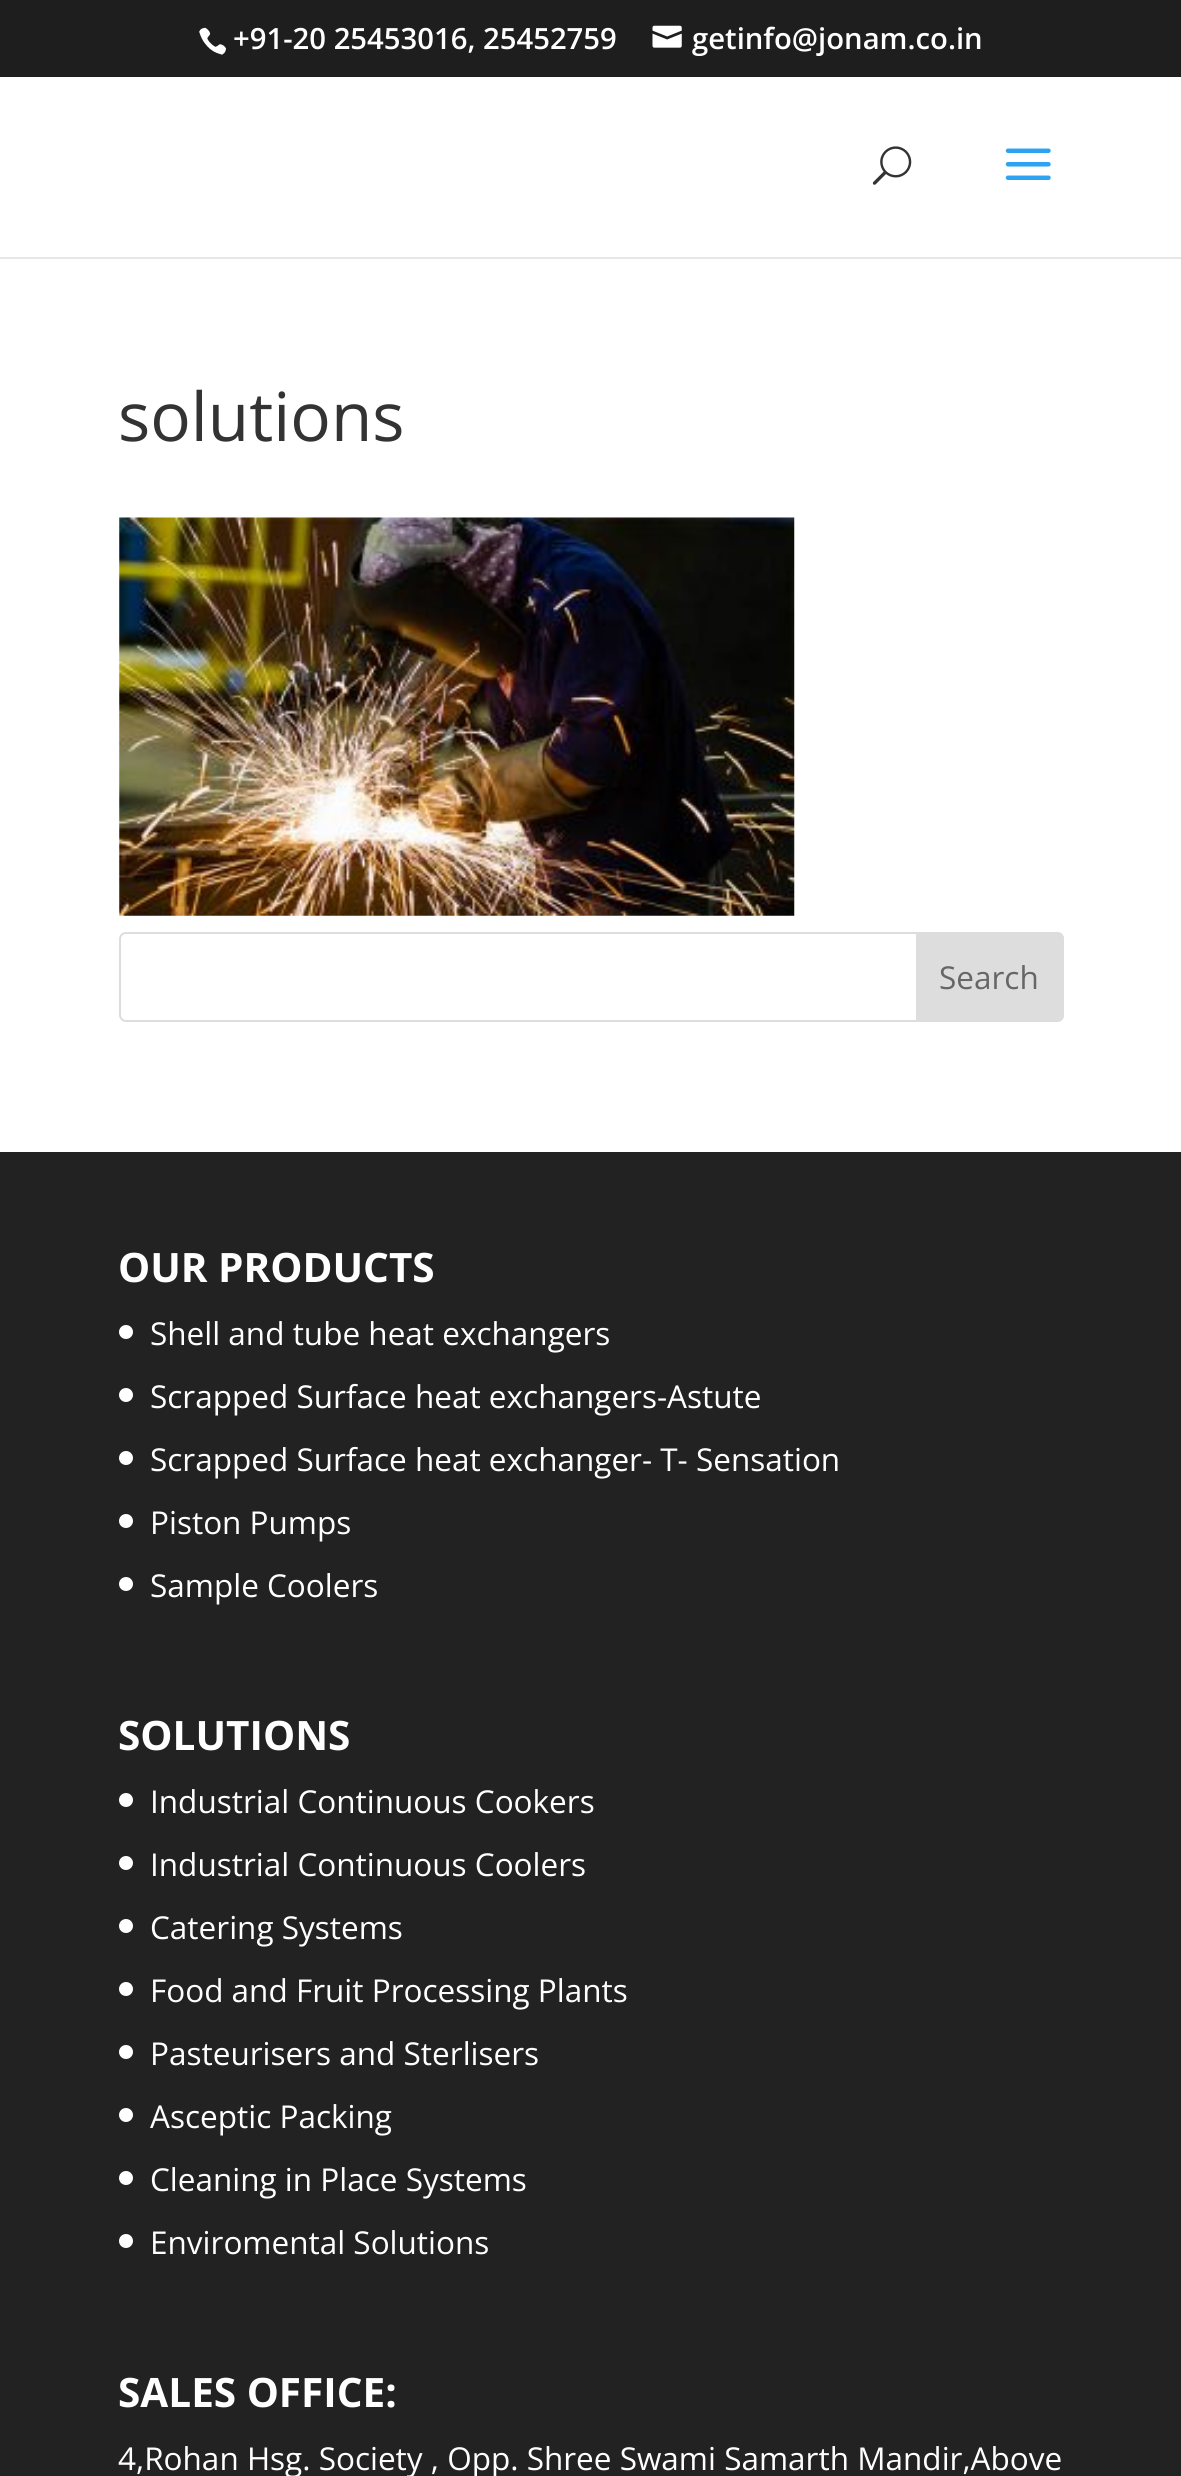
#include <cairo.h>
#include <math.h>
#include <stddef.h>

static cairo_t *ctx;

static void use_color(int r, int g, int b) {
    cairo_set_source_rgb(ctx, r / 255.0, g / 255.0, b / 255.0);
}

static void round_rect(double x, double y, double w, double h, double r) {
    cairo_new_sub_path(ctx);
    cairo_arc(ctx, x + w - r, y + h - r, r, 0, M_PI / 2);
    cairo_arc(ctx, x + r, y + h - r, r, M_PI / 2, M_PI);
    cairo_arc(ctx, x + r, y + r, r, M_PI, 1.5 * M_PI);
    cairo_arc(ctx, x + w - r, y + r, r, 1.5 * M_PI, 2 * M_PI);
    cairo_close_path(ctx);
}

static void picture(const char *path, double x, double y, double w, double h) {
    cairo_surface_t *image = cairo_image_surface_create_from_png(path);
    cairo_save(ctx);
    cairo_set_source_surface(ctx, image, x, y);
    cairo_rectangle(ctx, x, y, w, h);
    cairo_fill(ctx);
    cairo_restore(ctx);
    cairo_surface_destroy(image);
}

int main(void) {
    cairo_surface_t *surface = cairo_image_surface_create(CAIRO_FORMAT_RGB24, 1181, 2476);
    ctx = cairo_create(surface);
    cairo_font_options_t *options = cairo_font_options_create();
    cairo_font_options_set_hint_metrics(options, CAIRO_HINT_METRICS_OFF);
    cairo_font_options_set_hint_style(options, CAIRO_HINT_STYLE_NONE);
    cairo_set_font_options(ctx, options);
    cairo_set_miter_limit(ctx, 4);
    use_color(255, 255, 255);
    cairo_paint(ctx);
    use_color(30, 30, 30);
    cairo_rectangle(ctx, 0, 0, 1181, 77);
    cairo_fill(ctx);
    picture("img1.png", 199, 27, 27, 28);
    cairo_select_font_face(ctx, "Open Sans SemiBold", CAIRO_FONT_SLANT_NORMAL, CAIRO_FONT_WEIGHT_NORMAL);
    cairo_set_font_size(ctx, 29.25);
    use_color(255, 255, 255);
    cairo_move_to(ctx, 233, 49);
    cairo_show_text(ctx, "+91-20 25453016, 25452759");
    picture("img2.png", 652, 25, 30, 23);
    cairo_move_to(ctx, 692, 49);
    cairo_show_text(ctx, "getinfo@jonam.co.in");
    use_color(230, 230, 230);
    cairo_rectangle(ctx, 0, 257, 1181, 2);
    cairo_fill(ctx);
    picture("img3.png", 872, 146, 40, 39);
    picture("img4.png", 1005, 148, 46, 32);
    cairo_select_font_face(ctx, "Open Sans", CAIRO_FONT_SLANT_NORMAL, CAIRO_FONT_WEIGHT_NORMAL);
    cairo_set_font_size(ctx, 67.5);
    use_color(51, 51, 51);
    cairo_move_to(ctx, 118, 441);
    cairo_show_text(ctx, "solutions");
    picture("img5.png", 119, 517, 676, 399);
    round_rect(120, 933, 943, 88, 6);
    use_color(221, 221, 221);
    cairo_stroke(ctx);
    cairo_new_path(ctx);
    cairo_move_to(ctx, 917, 933);
    cairo_line_to(ctx, 1057, 933);
    cairo_curve_to(ctx, 1060.5, 933, 1063, 935.5, 1063, 939);
    cairo_line_to(ctx, 1063, 1015);
    cairo_curve_to(ctx, 1063, 1018.5, 1060.5, 1021, 1057, 1021);
    cairo_line_to(ctx, 917, 1021);
    cairo_close_path(ctx);
    cairo_fill_preserve(ctx);
    cairo_stroke(ctx);
    cairo_set_font_size(ctx, 31.5);
    use_color(102, 102, 102);
    cairo_move_to(ctx, 939, 989);
    cairo_show_text(ctx, "Search");
    use_color(34, 34, 34);
    cairo_rectangle(ctx, 0, 1152, 1181, 1324);
    cairo_fill(ctx);
    cairo_select_font_face(ctx, "Open Sans", CAIRO_FONT_SLANT_NORMAL, CAIRO_FONT_WEIGHT_BOLD);
    cairo_set_font_size(ctx, 40.5);
    use_color(255, 255, 255);
    cairo_move_to(ctx, 118, 1282);
    cairo_show_text(ctx, "OUR PRODUCTS");
    cairo_new_path(ctx);
    cairo_arc(ctx, 126, 1332, 7, 0, 2 * M_PI);
    cairo_fill(ctx);
    cairo_select_font_face(ctx, "Open Sans", CAIRO_FONT_SLANT_NORMAL, CAIRO_FONT_WEIGHT_NORMAL);
    cairo_set_font_size(ctx, 31.5);
    cairo_move_to(ctx, 150, 1345);
    cairo_show_text(ctx, "Shell and tube heat exchangers");
    cairo_new_path(ctx);
    cairo_arc(ctx, 126, 1395, 7, 0, 2 * M_PI);
    cairo_fill(ctx);
    cairo_move_to(ctx, 150, 1408);
    cairo_show_text(ctx, "Scrapped Surface heat exchangers-Astute");
    cairo_new_path(ctx);
    cairo_arc(ctx, 126, 1458, 7, 0, 2 * M_PI);
    cairo_fill(ctx);
    cairo_move_to(ctx, 150, 1471);
    cairo_show_text(ctx, "Scrapped Surface heat exchanger- T- Sensation");
    cairo_new_path(ctx);
    cairo_arc(ctx, 126, 1521, 7, 0, 2 * M_PI);
    cairo_fill(ctx);
    cairo_move_to(ctx, 150, 1534);
    cairo_show_text(ctx, "Piston Pumps");
    cairo_new_path(ctx);
    cairo_arc(ctx, 126, 1584, 7, 0, 2 * M_PI);
    cairo_fill(ctx);
    cairo_move_to(ctx, 150, 1597);
    cairo_show_text(ctx, "Sample Coolers");
    cairo_select_font_face(ctx, "Open Sans", CAIRO_FONT_SLANT_NORMAL, CAIRO_FONT_WEIGHT_BOLD);
    cairo_set_font_size(ctx, 40.5);
    cairo_move_to(ctx, 118, 1750);
    cairo_show_text(ctx, "SOLUTIONS");
    cairo_new_path(ctx);
    cairo_arc(ctx, 126, 1800, 7, 0, 2 * M_PI);
    cairo_fill(ctx);
    cairo_select_font_face(ctx, "Open Sans", CAIRO_FONT_SLANT_NORMAL, CAIRO_FONT_WEIGHT_NORMAL);
    cairo_set_font_size(ctx, 31.5);
    cairo_move_to(ctx, 150, 1813);
    cairo_show_text(ctx, "Industrial Continuous Cookers");
    cairo_new_path(ctx);
    cairo_arc(ctx, 126, 1863, 7, 0, 2 * M_PI);
    cairo_fill(ctx);
    cairo_move_to(ctx, 150, 1876);
    cairo_show_text(ctx, "Industrial Continuous Coolers");
    cairo_new_path(ctx);
    cairo_arc(ctx, 126, 1926, 7, 0, 2 * M_PI);
    cairo_fill(ctx);
    cairo_move_to(ctx, 150, 1939);
    cairo_show_text(ctx, "Catering Systems");
    cairo_new_path(ctx);
    cairo_arc(ctx, 126, 1989, 7, 0, 2 * M_PI);
    cairo_fill(ctx);
    cairo_move_to(ctx, 150, 2002);
    cairo_show_text(ctx, "Food and Fruit Processing Plants");
    cairo_new_path(ctx);
    cairo_arc(ctx, 126, 2052, 7, 0, 2 * M_PI);
    cairo_fill(ctx);
    cairo_move_to(ctx, 150, 2065);
    cairo_show_text(ctx, "Pasteurisers and Sterlisers");
    cairo_new_path(ctx);
    cairo_arc(ctx, 126, 2115, 7, 0, 2 * M_PI);
    cairo_fill(ctx);
    cairo_move_to(ctx, 150, 2128);
    cairo_show_text(ctx, "Asceptic Packing");
    cairo_new_path(ctx);
    cairo_arc(ctx, 126, 2178, 7, 0, 2 * M_PI);
    cairo_fill(ctx);
    cairo_move_to(ctx, 150, 2191);
    cairo_show_text(ctx, "Cleaning in Place Systems");
    cairo_new_path(ctx);
    cairo_arc(ctx, 126, 2241, 7, 0, 2 * M_PI);
    cairo_fill(ctx);
    cairo_move_to(ctx, 150, 2254);
    cairo_show_text(ctx, "Enviromental Solutions");
    cairo_select_font_face(ctx, "Open Sans", CAIRO_FONT_SLANT_NORMAL, CAIRO_FONT_WEIGHT_BOLD);
    cairo_set_font_size(ctx, 40.5);
    cairo_move_to(ctx, 118, 2407);
    cairo_show_text(ctx, "SALES OFFICE:");
    cairo_select_font_face(ctx, "Open Sans", CAIRO_FONT_SLANT_NORMAL, CAIRO_FONT_WEIGHT_NORMAL);
    cairo_set_font_size(ctx, 31.5);
    cairo_move_to(ctx, 118, 2470);
    cairo_show_text(ctx, "4,Rohan Hsg. Society , Opp. Shree Swami Samarth Mandir,Above");
    cairo_surface_write_to_png(surface, "result.png");
    cairo_font_options_destroy(options);
    cairo_destroy(ctx);
    cairo_surface_destroy(surface);
    return 0;
}
